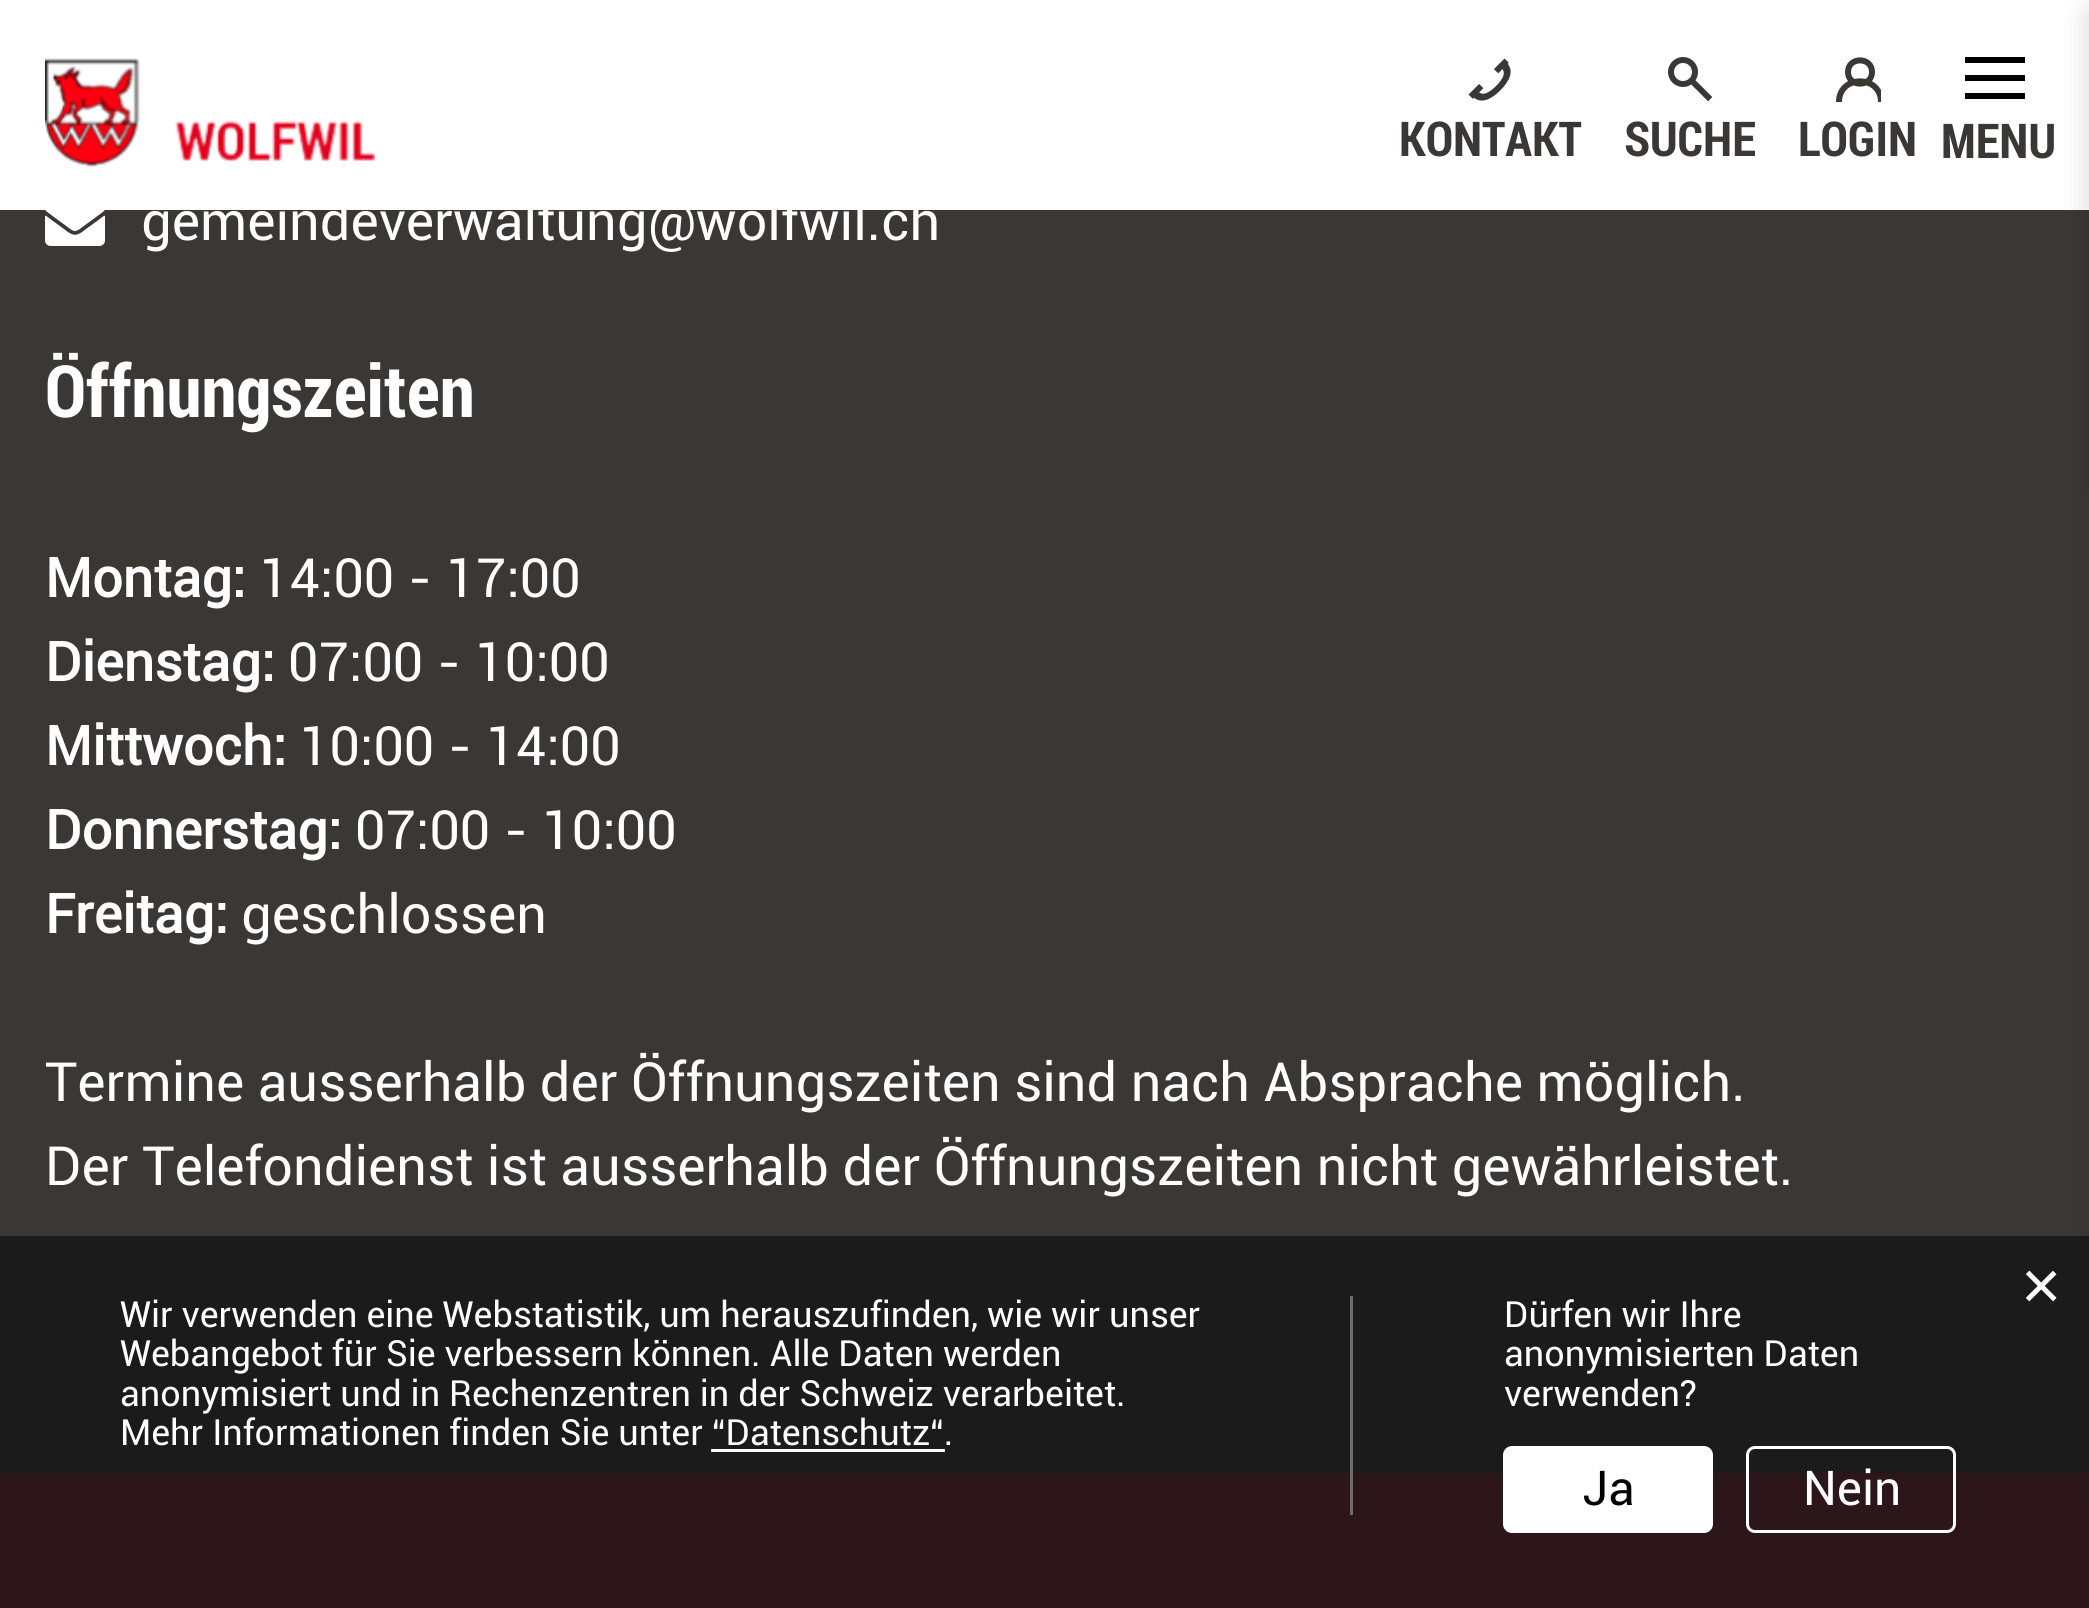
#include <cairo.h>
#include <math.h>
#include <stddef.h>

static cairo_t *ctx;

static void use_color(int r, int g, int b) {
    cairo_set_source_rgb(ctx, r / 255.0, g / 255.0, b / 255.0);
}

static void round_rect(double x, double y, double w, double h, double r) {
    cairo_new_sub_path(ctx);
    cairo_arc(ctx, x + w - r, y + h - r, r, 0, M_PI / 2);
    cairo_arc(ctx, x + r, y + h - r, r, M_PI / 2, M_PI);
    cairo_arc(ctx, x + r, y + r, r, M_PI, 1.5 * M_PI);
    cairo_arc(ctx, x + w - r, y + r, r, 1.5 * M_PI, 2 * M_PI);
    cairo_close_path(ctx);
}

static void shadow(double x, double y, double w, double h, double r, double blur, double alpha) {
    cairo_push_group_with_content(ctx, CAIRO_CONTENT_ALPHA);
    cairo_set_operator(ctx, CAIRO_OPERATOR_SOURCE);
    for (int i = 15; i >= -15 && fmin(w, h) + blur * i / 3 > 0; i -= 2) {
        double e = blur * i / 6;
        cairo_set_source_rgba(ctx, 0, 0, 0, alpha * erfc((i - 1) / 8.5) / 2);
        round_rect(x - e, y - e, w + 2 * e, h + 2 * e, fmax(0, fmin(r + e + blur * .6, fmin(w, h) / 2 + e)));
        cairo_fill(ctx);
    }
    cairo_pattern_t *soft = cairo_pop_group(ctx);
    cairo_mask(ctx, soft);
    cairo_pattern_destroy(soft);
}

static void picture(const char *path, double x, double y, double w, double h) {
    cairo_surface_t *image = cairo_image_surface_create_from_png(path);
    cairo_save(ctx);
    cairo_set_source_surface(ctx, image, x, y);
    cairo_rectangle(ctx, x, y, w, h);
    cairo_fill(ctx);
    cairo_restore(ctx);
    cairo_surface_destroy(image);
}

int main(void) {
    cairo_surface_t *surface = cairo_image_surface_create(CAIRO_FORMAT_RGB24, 2089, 1608);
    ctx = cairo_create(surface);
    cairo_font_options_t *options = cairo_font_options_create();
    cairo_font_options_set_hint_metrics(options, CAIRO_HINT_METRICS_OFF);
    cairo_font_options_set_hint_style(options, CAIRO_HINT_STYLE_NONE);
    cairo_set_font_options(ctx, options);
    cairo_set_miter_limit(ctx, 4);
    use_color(59, 55, 53);
    cairo_paint(ctx);
    use_color(255, 255, 255);
    cairo_rectangle(ctx, 0, 0, 2089, 210);
    cairo_fill(ctx);
    use_color(0, 0, 0);
    shadow(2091, 15, 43, 471, 0, 15, 0.1);
    picture("img1.png", 45, 58, 330, 109);
    picture("img2.png", 1468, 58, 43, 43);
    cairo_select_font_face(ctx, "Roboto Condensed", CAIRO_FONT_SLANT_NORMAL, CAIRO_FONT_WEIGHT_BOLD);
    cairo_set_font_size(ctx, 48);
    use_color(59, 55, 53);
    cairo_move_to(ctx, 1399, 156);
    cairo_show_text(ctx, "KONTAKT");
    picture("img3.png", 1668, 57, 45, 45);
    cairo_move_to(ctx, 1624, 156);
    cairo_show_text(ctx, "SUCHE");
    cairo_new_path(ctx);
    cairo_move_to(ctx, 1872, 72);
    cairo_curve_to(ctx, 1872, 87.5, 1848, 87.5, 1848, 72);
    cairo_curve_to(ctx, 1848, 56.5, 1872, 56.5, 1872, 72);
    cairo_close_path(ctx);
    cairo_set_line_width(ctx, 6);
    cairo_stroke(ctx);
    cairo_save(ctx);
    cairo_rectangle(ctx, 1836, 57, 45, 45);
    cairo_clip(ctx);
    cairo_new_path(ctx);
    cairo_move_to(ctx, 1881, 102);
    cairo_curve_to(ctx, 1881, 74.5, 1839, 74.5, 1839, 102);
    cairo_stroke(ctx);
    cairo_restore(ctx);
    cairo_move_to(ctx, 1798, 156);
    cairo_show_text(ctx, "LOGIN");
    use_color(0, 0, 0);
    cairo_rectangle(ctx, 1965, 57, 60, 6);
    cairo_fill(ctx);
    cairo_rectangle(ctx, 1965, 75, 60, 6);
    cairo_fill(ctx);
    cairo_rectangle(ctx, 1965, 93, 60, 6);
    cairo_fill(ctx);
    use_color(59, 55, 53);
    cairo_move_to(ctx, 1941, 158);
    cairo_show_text(ctx, "MENU");
    use_color(227, 0, 29);
    cairo_rectangle(ctx, 0, 1473, 2089, 135);
    cairo_fill(ctx);
    use_color(0, 0, 0);
    shadow(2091, 15, 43, 1491, 0, 15, 0.1);
    picture("img4.png", 45, 210, 60, 36);
    cairo_select_font_face(ctx, "Roboto", CAIRO_FONT_SLANT_NORMAL, CAIRO_FONT_WEIGHT_NORMAL);
    cairo_set_font_size(ctx, 54);
    use_color(255, 255, 255);
    cairo_move_to(ctx, 141, 240);
    cairo_show_text(ctx, "gemeindeverwaltung@wolfwil.ch");
    cairo_select_font_face(ctx, "Roboto Condensed", CAIRO_FONT_SLANT_NORMAL, CAIRO_FONT_WEIGHT_BOLD);
    cairo_set_font_size(ctx, 72);
    cairo_move_to(ctx, 45, 417);
    cairo_show_text(ctx, "Öffnungszeiten");
    cairo_select_font_face(ctx, "Roboto", CAIRO_FONT_SLANT_NORMAL, CAIRO_FONT_WEIGHT_BOLD);
    cairo_set_font_size(ctx, 54);
    cairo_move_to(ctx, 45, 597);
    cairo_show_text(ctx, "Montag:");
    cairo_select_font_face(ctx, "Roboto", CAIRO_FONT_SLANT_NORMAL, CAIRO_FONT_WEIGHT_NORMAL);
    cairo_move_to(ctx, 259, 597);
    cairo_show_text(ctx, "14:00 - 17:00");
    cairo_select_font_face(ctx, "Roboto", CAIRO_FONT_SLANT_NORMAL, CAIRO_FONT_WEIGHT_BOLD);
    cairo_move_to(ctx, 45, 681);
    cairo_show_text(ctx, "Dienstag:");
    cairo_select_font_face(ctx, "Roboto", CAIRO_FONT_SLANT_NORMAL, CAIRO_FONT_WEIGHT_NORMAL);
    cairo_move_to(ctx, 288, 681);
    cairo_show_text(ctx, "07:00 - 10:00");
    cairo_select_font_face(ctx, "Roboto", CAIRO_FONT_SLANT_NORMAL, CAIRO_FONT_WEIGHT_BOLD);
    cairo_move_to(ctx, 45, 765);
    cairo_show_text(ctx, "Mittwoch:");
    cairo_select_font_face(ctx, "Roboto", CAIRO_FONT_SLANT_NORMAL, CAIRO_FONT_WEIGHT_NORMAL);
    cairo_move_to(ctx, 299, 765);
    cairo_show_text(ctx, "10:00 - 14:00");
    cairo_select_font_face(ctx, "Roboto", CAIRO_FONT_SLANT_NORMAL, CAIRO_FONT_WEIGHT_BOLD);
    cairo_move_to(ctx, 45, 849);
    cairo_show_text(ctx, "Donnerstag:");
    cairo_select_font_face(ctx, "Roboto", CAIRO_FONT_SLANT_NORMAL, CAIRO_FONT_WEIGHT_NORMAL);
    cairo_move_to(ctx, 355, 849);
    cairo_show_text(ctx, "07:00 - 10:00");
    cairo_select_font_face(ctx, "Roboto", CAIRO_FONT_SLANT_NORMAL, CAIRO_FONT_WEIGHT_BOLD);
    cairo_move_to(ctx, 45, 933);
    cairo_show_text(ctx, "Freitag:");
    cairo_select_font_face(ctx, "Roboto", CAIRO_FONT_SLANT_NORMAL, CAIRO_FONT_WEIGHT_NORMAL);
    cairo_move_to(ctx, 241, 933);
    cairo_show_text(ctx, "geschlossen");
    cairo_move_to(ctx, 45, 1101);
    cairo_show_text(ctx, "Termine ausserhalb der Öffnungszeiten sind nach Absprache möglich.");
    cairo_move_to(ctx, 45, 1185);
    cairo_show_text(ctx, "Der Telefondienst ist ausserhalb der Öffnungszeiten nicht gewährleistet.");
    cairo_set_source_rgba(ctx, 0.098, 0.098, 0.098, 0.9);
    cairo_rectangle(ctx, 0, 1236, 2089, 372);
    cairo_fill(ctx);
    cairo_select_font_face(ctx, "Liberation Sans", CAIRO_FONT_SLANT_NORMAL, CAIRO_FONT_WEIGHT_NORMAL);
    cairo_set_font_size(ctx, 69);
    use_color(255, 255, 255);
    cairo_move_to(ctx, 2021, 1309);
    cairo_show_text(ctx, "×");
    use_color(109, 109, 109);
    cairo_rectangle(ctx, 1350, 1296, 3, 219);
    cairo_fill(ctx);
    cairo_select_font_face(ctx, "Roboto", CAIRO_FONT_SLANT_NORMAL, CAIRO_FONT_WEIGHT_NORMAL);
    cairo_set_font_size(ctx, 36);
    use_color(255, 255, 255);
    cairo_move_to(ctx, 120, 1327);
    cairo_show_text(ctx, "Wir verwenden eine Webstatistik, um herauszufinden, wie wir unser");
    cairo_move_to(ctx, 120, 1366);
    cairo_show_text(ctx, "Webangebot für Sie verbessern können. Alle Daten werden");
    cairo_move_to(ctx, 120, 1406);
    cairo_show_text(ctx, "anonymisiert und in Rechenzentren in der Schweiz verarbeitet.");
    cairo_move_to(ctx, 120, 1445);
    cairo_show_text(ctx, "Mehr Informationen finden Sie unter “Datenschutz“.");
    cairo_rectangle(ctx, 711, 1449, 234, 3);
    cairo_fill(ctx);
    cairo_move_to(ctx, 1504, 1327);
    cairo_show_text(ctx, "Dürfen wir Ihre");
    cairo_move_to(ctx, 1504, 1366);
    cairo_show_text(ctx, "anonymisierten Daten");
    cairo_move_to(ctx, 1504, 1406);
    cairo_show_text(ctx, "verwenden?");
    round_rect(1504.5, 1447.5, 207, 84, 7.5);
    cairo_fill_preserve(ctx);
    cairo_set_line_width(ctx, 3);
    cairo_stroke(ctx);
    cairo_set_font_size(ctx, 48);
    use_color(0, 0, 0);
    cairo_move_to(ctx, 1582, 1505);
    cairo_show_text(ctx, "Ja");
    round_rect(1747.5, 1447.5, 207, 84, 7.5);
    use_color(255, 255, 255);
    cairo_stroke(ctx);
    cairo_move_to(ctx, 1803, 1505);
    cairo_show_text(ctx, "Nein");
    cairo_surface_write_to_png(surface, "result.png");
    cairo_font_options_destroy(options);
    cairo_destroy(ctx);
    cairo_surface_destroy(surface);
    return 0;
}
